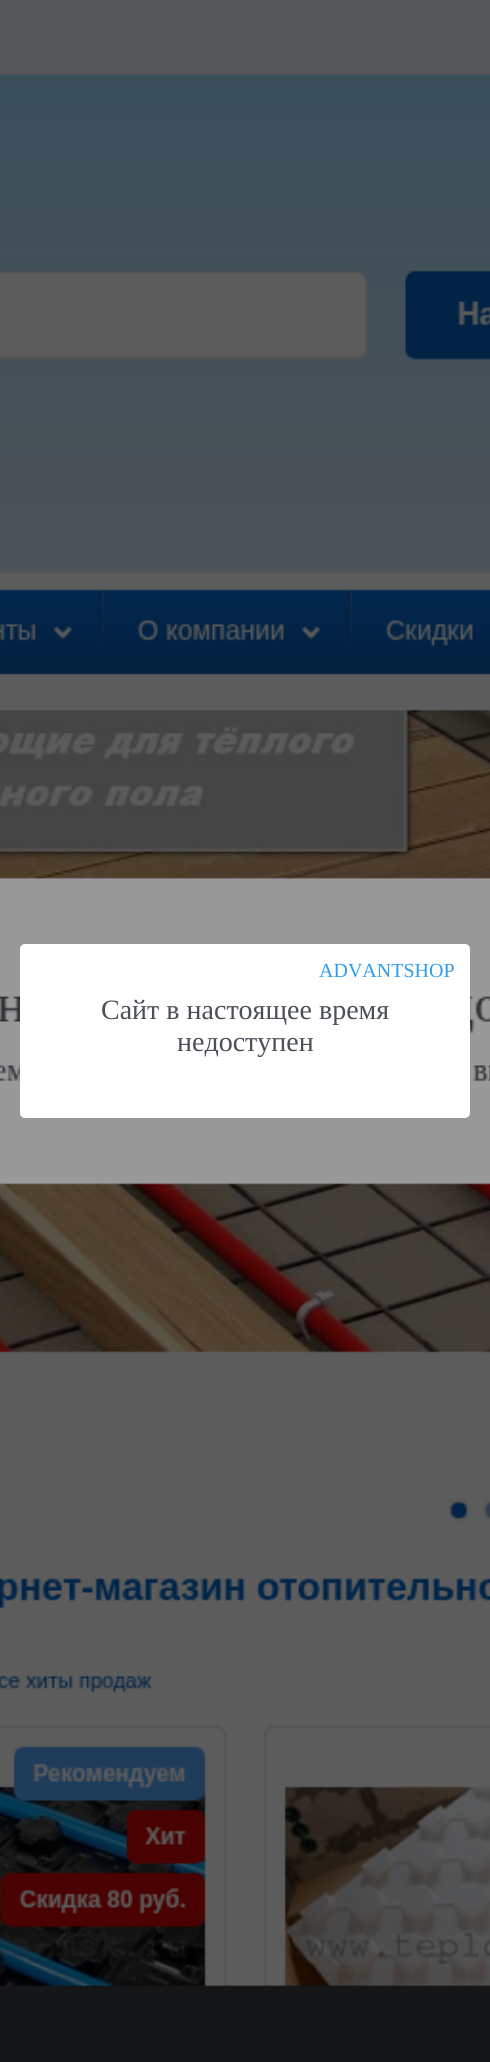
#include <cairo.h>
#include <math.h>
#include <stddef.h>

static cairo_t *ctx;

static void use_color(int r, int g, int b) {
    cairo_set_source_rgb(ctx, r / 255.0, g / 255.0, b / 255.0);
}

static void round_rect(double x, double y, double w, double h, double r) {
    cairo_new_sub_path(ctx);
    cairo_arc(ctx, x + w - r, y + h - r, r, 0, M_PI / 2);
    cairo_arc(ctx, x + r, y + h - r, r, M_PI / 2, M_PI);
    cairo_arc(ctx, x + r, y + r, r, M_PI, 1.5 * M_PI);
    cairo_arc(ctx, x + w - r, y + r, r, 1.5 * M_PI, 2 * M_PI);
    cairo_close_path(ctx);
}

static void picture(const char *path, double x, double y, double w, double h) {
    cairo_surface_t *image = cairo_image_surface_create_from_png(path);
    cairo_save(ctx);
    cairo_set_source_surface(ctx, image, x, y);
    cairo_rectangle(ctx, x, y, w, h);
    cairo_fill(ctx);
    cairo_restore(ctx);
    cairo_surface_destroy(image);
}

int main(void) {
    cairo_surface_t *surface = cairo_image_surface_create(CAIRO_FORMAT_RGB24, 490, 2062);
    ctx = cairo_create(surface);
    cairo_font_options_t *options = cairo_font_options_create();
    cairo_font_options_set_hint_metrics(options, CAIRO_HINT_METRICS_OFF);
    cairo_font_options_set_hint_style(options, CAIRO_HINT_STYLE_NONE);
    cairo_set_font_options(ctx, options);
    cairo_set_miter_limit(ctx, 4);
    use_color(255, 255, 255);
    cairo_paint(ctx);
    picture("img1.png", 0, 0, 490, 2062);
    use_color(255, 255, 255);
    round_rect(20, 944, 450, 174, 5);
    cairo_fill(ctx);
    cairo_select_font_face(ctx, "Liberation Serif", CAIRO_FONT_SLANT_NORMAL, CAIRO_FONT_WEIGHT_NORMAL);
    cairo_set_font_size(ctx, 20);
    use_color(46, 157, 236);
    cairo_move_to(ctx, 319, 977);
    cairo_show_text(ctx, "ADVANTSHOP");
    cairo_set_font_size(ctx, 28);
    use_color(75, 79, 88);
    cairo_move_to(ctx, 101, 1019);
    cairo_show_text(ctx, "Сайт в настоящее время");
    cairo_move_to(ctx, 177, 1051);
    cairo_show_text(ctx, "недоступен");
    cairo_surface_write_to_png(surface, "result.png");
    cairo_font_options_destroy(options);
    cairo_destroy(ctx);
    cairo_surface_destroy(surface);
    return 0;
}
